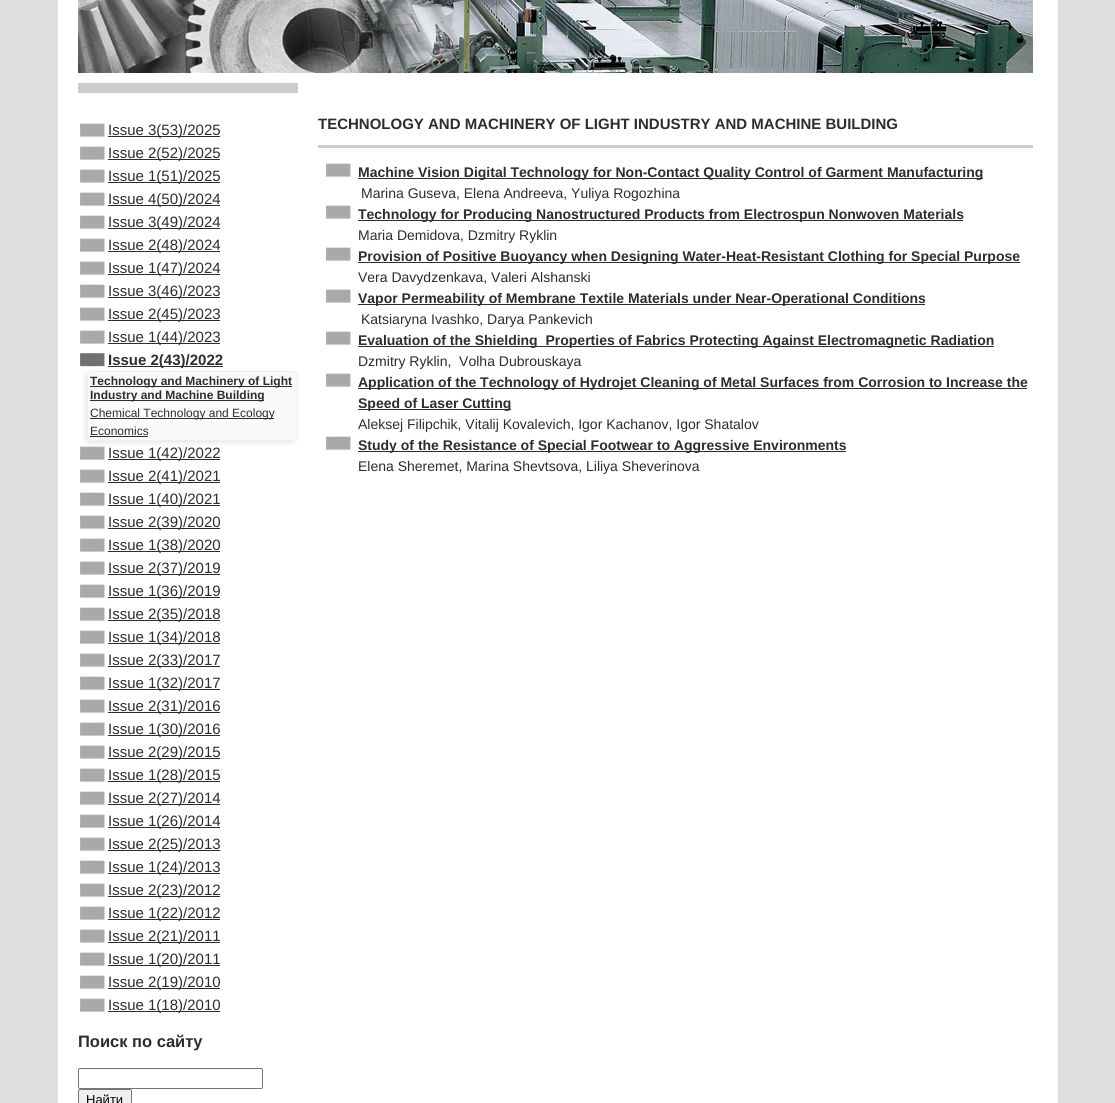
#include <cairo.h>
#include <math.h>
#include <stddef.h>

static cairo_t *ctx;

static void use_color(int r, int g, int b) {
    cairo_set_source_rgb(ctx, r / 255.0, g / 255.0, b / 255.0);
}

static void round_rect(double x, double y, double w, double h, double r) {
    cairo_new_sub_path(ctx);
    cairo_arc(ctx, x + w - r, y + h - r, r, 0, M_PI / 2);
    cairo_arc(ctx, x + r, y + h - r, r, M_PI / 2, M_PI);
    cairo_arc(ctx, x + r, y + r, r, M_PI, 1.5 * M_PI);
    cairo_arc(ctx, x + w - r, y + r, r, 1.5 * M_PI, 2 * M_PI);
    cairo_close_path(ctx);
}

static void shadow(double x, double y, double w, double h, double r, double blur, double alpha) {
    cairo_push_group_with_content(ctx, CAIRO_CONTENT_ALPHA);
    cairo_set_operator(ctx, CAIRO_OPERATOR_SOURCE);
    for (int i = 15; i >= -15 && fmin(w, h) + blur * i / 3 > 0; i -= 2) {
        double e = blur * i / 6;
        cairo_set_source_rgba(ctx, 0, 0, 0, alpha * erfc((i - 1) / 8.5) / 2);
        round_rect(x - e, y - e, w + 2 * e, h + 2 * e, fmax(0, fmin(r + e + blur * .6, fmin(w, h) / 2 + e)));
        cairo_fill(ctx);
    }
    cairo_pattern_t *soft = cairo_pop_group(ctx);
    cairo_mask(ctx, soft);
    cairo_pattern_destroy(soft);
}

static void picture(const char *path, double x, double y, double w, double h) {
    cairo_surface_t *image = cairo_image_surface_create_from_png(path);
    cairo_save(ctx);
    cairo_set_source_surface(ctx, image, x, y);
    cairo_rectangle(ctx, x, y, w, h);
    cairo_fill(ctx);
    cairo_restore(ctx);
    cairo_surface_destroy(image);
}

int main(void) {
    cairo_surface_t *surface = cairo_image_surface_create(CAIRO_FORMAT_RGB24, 1115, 1103);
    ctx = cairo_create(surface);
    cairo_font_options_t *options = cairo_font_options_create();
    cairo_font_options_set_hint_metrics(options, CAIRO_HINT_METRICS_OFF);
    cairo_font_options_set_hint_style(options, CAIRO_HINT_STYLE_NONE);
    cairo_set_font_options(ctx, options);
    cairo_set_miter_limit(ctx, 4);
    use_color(222, 222, 220);
    cairo_paint(ctx);
    use_color(255, 255, 255);
    cairo_rectangle(ctx, 58, 0, 1000, 1103);
    cairo_fill(ctx);
    picture("img1.png", 78, 0, 955, 73);
    use_color(204, 204, 204);
    cairo_rectangle(ctx, 78, 83, 220, 10);
    cairo_fill(ctx);
    picture("img2.png", 80, 123, 25, 14);
    use_color(45, 45, 45);
    cairo_rectangle(ctx, 108, 136, 112, 1);
    cairo_fill(ctx);
    cairo_select_font_face(ctx, "Liberation Sans", CAIRO_FONT_SLANT_NORMAL, CAIRO_FONT_WEIGHT_NORMAL);
    cairo_set_font_size(ctx, 15);
    cairo_move_to(ctx, 108, 135);
    cairo_show_text(ctx, "Issue 3(53)/2025");
    picture("img2.png", 80, 146, 25, 14);
    cairo_rectangle(ctx, 108, 159, 112, 1);
    cairo_fill(ctx);
    cairo_move_to(ctx, 108, 158);
    cairo_show_text(ctx, "Issue 2(52)/2025");
    picture("img2.png", 80, 169, 25, 14);
    cairo_rectangle(ctx, 108, 182, 112, 1);
    cairo_fill(ctx);
    cairo_move_to(ctx, 108, 181);
    cairo_show_text(ctx, "Issue 1(51)/2025");
    picture("img2.png", 80, 192, 25, 14);
    cairo_rectangle(ctx, 108, 205, 112, 1);
    cairo_fill(ctx);
    cairo_move_to(ctx, 108, 204);
    cairo_show_text(ctx, "Issue 4(50)/2024");
    picture("img2.png", 80, 215, 25, 14);
    cairo_rectangle(ctx, 108, 228, 112, 1);
    cairo_fill(ctx);
    cairo_move_to(ctx, 108, 227);
    cairo_show_text(ctx, "Issue 3(49)/2024");
    picture("img2.png", 80, 238, 25, 14);
    cairo_rectangle(ctx, 108, 251, 112, 1);
    cairo_fill(ctx);
    cairo_move_to(ctx, 108, 250);
    cairo_show_text(ctx, "Issue 2(48)/2024");
    picture("img2.png", 80, 261, 25, 14);
    cairo_rectangle(ctx, 108, 274, 112, 1);
    cairo_fill(ctx);
    cairo_move_to(ctx, 108, 273);
    cairo_show_text(ctx, "Issue 1(47)/2024");
    picture("img2.png", 80, 284, 25, 14);
    cairo_rectangle(ctx, 108, 297, 112, 1);
    cairo_fill(ctx);
    cairo_move_to(ctx, 108, 296);
    cairo_show_text(ctx, "Issue 3(46)/2023");
    picture("img2.png", 80, 307, 25, 14);
    cairo_rectangle(ctx, 108, 320, 112, 1);
    cairo_fill(ctx);
    cairo_move_to(ctx, 108, 319);
    cairo_show_text(ctx, "Issue 2(45)/2023");
    picture("img2.png", 80, 330, 25, 14);
    cairo_rectangle(ctx, 108, 343, 112, 1);
    cairo_fill(ctx);
    cairo_move_to(ctx, 108, 342);
    cairo_show_text(ctx, "Issue 1(44)/2023");
    cairo_save(ctx);
    cairo_set_fill_rule(ctx, CAIRO_FILL_RULE_EVEN_ODD);
    cairo_new_path(ctx);
    cairo_move_to(ctx, 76, 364);
    cairo_line_to(ctx, 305, 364);
    cairo_line_to(ctx, 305, 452);
    cairo_line_to(ctx, 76, 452);
    cairo_close_path(ctx);
    cairo_move_to(ctx, 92, 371);
    cairo_line_to(ctx, 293, 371);
    cairo_curve_to(ctx, 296, 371, 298, 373, 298, 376);
    cairo_line_to(ctx, 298, 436);
    cairo_curve_to(ctx, 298, 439, 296, 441, 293, 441);
    cairo_line_to(ctx, 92, 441);
    cairo_curve_to(ctx, 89, 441, 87, 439, 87, 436);
    cairo_line_to(ctx, 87, 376);
    cairo_curve_to(ctx, 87, 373, 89, 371, 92, 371);
    cairo_close_path(ctx);
    cairo_clip(ctx);
    use_color(0, 0, 0);
    shadow(85, 373, 211, 70, 5, 2.5, 0.1);
    cairo_restore(ctx);
    picture("img3.png", 80, 353, 25, 14);
    cairo_rectangle(ctx, 108, 366, 115, 1);
    cairo_fill(ctx);
    cairo_select_font_face(ctx, "Liberation Sans", CAIRO_FONT_SLANT_NORMAL, CAIRO_FONT_WEIGHT_BOLD);
    cairo_move_to(ctx, 108, 365);
    cairo_show_text(ctx, "Issue 2(43)/2022");
    cairo_set_source_rgba(ctx, 0.969, 0.969, 0.969, 0.6);
    round_rect(87.5, 371.5, 210, 69, 4.5);
    cairo_fill_preserve(ctx);
    use_color(239, 239, 239);
    cairo_set_line_width(ctx, 1);
    cairo_stroke(ctx);
    use_color(45, 45, 45);
    cairo_rectangle(ctx, 90, 386, 202, 1);
    cairo_fill(ctx);
    cairo_set_font_size(ctx, 12);
    cairo_move_to(ctx, 90, 385);
    cairo_show_text(ctx, "Technology and Machinery of Light");
    cairo_rectangle(ctx, 90, 400, 174, 1);
    cairo_fill(ctx);
    cairo_move_to(ctx, 90, 399);
    cairo_show_text(ctx, "Industry and Machine Building");
    cairo_rectangle(ctx, 90, 418, 184, 1);
    cairo_fill(ctx);
    cairo_select_font_face(ctx, "Liberation Sans", CAIRO_FONT_SLANT_NORMAL, CAIRO_FONT_WEIGHT_NORMAL);
    cairo_move_to(ctx, 90, 417);
    cairo_show_text(ctx, "Chemical Technology and Ecology");
    cairo_move_to(ctx, 90, 435);
    cairo_show_text(ctx, "Economics");
    cairo_rectangle(ctx, 90, 436, 58, 1);
    cairo_fill(ctx);
    picture("img2.png", 80, 446, 25, 14);
    cairo_rectangle(ctx, 108, 459, 112, 1);
    cairo_fill(ctx);
    cairo_set_font_size(ctx, 15);
    cairo_move_to(ctx, 108, 458);
    cairo_show_text(ctx, "Issue 1(42)/2022");
    picture("img2.png", 80, 469, 25, 14);
    cairo_rectangle(ctx, 108, 482, 112, 1);
    cairo_fill(ctx);
    cairo_move_to(ctx, 108, 481);
    cairo_show_text(ctx, "Issue 2(41)/2021");
    picture("img2.png", 80, 492, 25, 14);
    cairo_rectangle(ctx, 108, 505, 112, 1);
    cairo_fill(ctx);
    cairo_move_to(ctx, 108, 504);
    cairo_show_text(ctx, "Issue 1(40)/2021");
    picture("img2.png", 80, 515, 25, 14);
    cairo_rectangle(ctx, 108, 528, 112, 1);
    cairo_fill(ctx);
    cairo_move_to(ctx, 108, 527);
    cairo_show_text(ctx, "Issue 2(39)/2020");
    picture("img2.png", 80, 538, 25, 14);
    cairo_rectangle(ctx, 108, 551, 112, 1);
    cairo_fill(ctx);
    cairo_move_to(ctx, 108, 550);
    cairo_show_text(ctx, "Issue 1(38)/2020");
    picture("img2.png", 80, 561, 25, 14);
    cairo_rectangle(ctx, 108, 574, 112, 1);
    cairo_fill(ctx);
    cairo_move_to(ctx, 108, 573);
    cairo_show_text(ctx, "Issue 2(37)/2019");
    picture("img2.png", 80, 584, 25, 14);
    cairo_rectangle(ctx, 108, 597, 112, 1);
    cairo_fill(ctx);
    cairo_move_to(ctx, 108, 596);
    cairo_show_text(ctx, "Issue 1(36)/2019");
    picture("img2.png", 80, 607, 25, 14);
    cairo_rectangle(ctx, 108, 620, 112, 1);
    cairo_fill(ctx);
    cairo_move_to(ctx, 108, 619);
    cairo_show_text(ctx, "Issue 2(35)/2018");
    picture("img2.png", 80, 630, 25, 14);
    cairo_rectangle(ctx, 108, 643, 112, 1);
    cairo_fill(ctx);
    cairo_move_to(ctx, 108, 642);
    cairo_show_text(ctx, "Issue 1(34)/2018");
    picture("img2.png", 80, 653, 25, 14);
    cairo_rectangle(ctx, 108, 666, 112, 1);
    cairo_fill(ctx);
    cairo_move_to(ctx, 108, 665);
    cairo_show_text(ctx, "Issue 2(33)/2017");
    picture("img2.png", 80, 676, 25, 14);
    cairo_rectangle(ctx, 108, 689, 112, 1);
    cairo_fill(ctx);
    cairo_move_to(ctx, 108, 688);
    cairo_show_text(ctx, "Issue 1(32)/2017");
    picture("img2.png", 80, 699, 25, 14);
    cairo_rectangle(ctx, 108, 712, 112, 1);
    cairo_fill(ctx);
    cairo_move_to(ctx, 108, 711);
    cairo_show_text(ctx, "Issue 2(31)/2016");
    picture("img2.png", 80, 722, 25, 14);
    cairo_rectangle(ctx, 108, 735, 112, 1);
    cairo_fill(ctx);
    cairo_move_to(ctx, 108, 734);
    cairo_show_text(ctx, "Issue 1(30)/2016");
    picture("img2.png", 80, 745, 25, 14);
    cairo_rectangle(ctx, 108, 758, 112, 1);
    cairo_fill(ctx);
    cairo_move_to(ctx, 108, 757);
    cairo_show_text(ctx, "Issue 2(29)/2015");
    picture("img2.png", 80, 768, 25, 14);
    cairo_rectangle(ctx, 108, 781, 112, 1);
    cairo_fill(ctx);
    cairo_move_to(ctx, 108, 780);
    cairo_show_text(ctx, "Issue 1(28)/2015");
    picture("img2.png", 80, 791, 25, 14);
    cairo_rectangle(ctx, 108, 804, 112, 1);
    cairo_fill(ctx);
    cairo_move_to(ctx, 108, 803);
    cairo_show_text(ctx, "Issue 2(27)/2014");
    picture("img2.png", 80, 814, 25, 14);
    cairo_rectangle(ctx, 108, 827, 112, 1);
    cairo_fill(ctx);
    cairo_move_to(ctx, 108, 826);
    cairo_show_text(ctx, "Issue 1(26)/2014");
    picture("img2.png", 80, 837, 25, 14);
    cairo_rectangle(ctx, 108, 850, 112, 1);
    cairo_fill(ctx);
    cairo_move_to(ctx, 108, 849);
    cairo_show_text(ctx, "Issue 2(25)/2013");
    picture("img2.png", 80, 860, 25, 14);
    cairo_rectangle(ctx, 108, 873, 112, 1);
    cairo_fill(ctx);
    cairo_move_to(ctx, 108, 872);
    cairo_show_text(ctx, "Issue 1(24)/2013");
    picture("img2.png", 80, 883, 25, 14);
    cairo_rectangle(ctx, 108, 896, 112, 1);
    cairo_fill(ctx);
    cairo_move_to(ctx, 108, 895);
    cairo_show_text(ctx, "Issue 2(23)/2012");
    picture("img2.png", 80, 906, 25, 14);
    cairo_rectangle(ctx, 108, 919, 112, 1);
    cairo_fill(ctx);
    cairo_move_to(ctx, 108, 918);
    cairo_show_text(ctx, "Issue 1(22)/2012");
    picture("img2.png", 80, 929, 25, 14);
    cairo_rectangle(ctx, 108, 942, 112, 1);
    cairo_fill(ctx);
    cairo_move_to(ctx, 108, 941);
    cairo_show_text(ctx, "Issue 2(21)/2011");
    picture("img2.png", 80, 952, 25, 14);
    cairo_rectangle(ctx, 108, 965, 112, 1);
    cairo_fill(ctx);
    cairo_move_to(ctx, 108, 964);
    cairo_show_text(ctx, "Issue 1(20)/2011");
    picture("img2.png", 80, 975, 25, 14);
    cairo_rectangle(ctx, 108, 988, 112, 1);
    cairo_fill(ctx);
    cairo_move_to(ctx, 108, 987);
    cairo_show_text(ctx, "Issue 2(19)/2010");
    picture("img2.png", 80, 998, 25, 14);
    cairo_rectangle(ctx, 108, 1011, 112, 1);
    cairo_fill(ctx);
    cairo_move_to(ctx, 108, 1010);
    cairo_show_text(ctx, "Issue 1(18)/2010");
    cairo_select_font_face(ctx, "Liberation Sans", CAIRO_FONT_SLANT_NORMAL, CAIRO_FONT_WEIGHT_BOLD);
    cairo_set_font_size(ctx, 16.5);
    cairo_move_to(ctx, 78, 1047);
    cairo_show_text(ctx, "Поиск по сайту");
    round_rect(78.5, 1068.5, 184, 20, 1.5);
    use_color(118, 118, 118);
    cairo_stroke(ctx);
    use_color(239, 239, 239);
    round_rect(78.5, 1089.5, 53, 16, 1.5);
    cairo_fill_preserve(ctx);
    use_color(118, 118, 118);
    cairo_stroke(ctx);
    cairo_select_font_face(ctx, "Liberation Sans", CAIRO_FONT_SLANT_NORMAL, CAIRO_FONT_WEIGHT_NORMAL);
    cairo_set_font_size(ctx, 13);
    use_color(0, 0, 0);
    cairo_move_to(ctx, 86, 1104);
    cairo_show_text(ctx, "Найти");
    cairo_select_font_face(ctx, "Liberation Sans", CAIRO_FONT_SLANT_NORMAL, CAIRO_FONT_WEIGHT_BOLD);
    cairo_set_font_size(ctx, 15);
    use_color(45, 45, 45);
    cairo_move_to(ctx, 318, 129);
    cairo_show_text(ctx, "TECHNOLOGY AND MACHINERY OF LIGHT INDUSTRY AND MACHINE BUILDING");
    use_color(204, 204, 204);
    cairo_rectangle(ctx, 318, 145, 715, 3);
    cairo_fill(ctx);
    picture("img2.png", 326, 163, 25, 14);
    use_color(45, 45, 45);
    cairo_rectangle(ctx, 358, 178, 625, 1);
    cairo_fill(ctx);
    cairo_set_font_size(ctx, 14);
    cairo_move_to(ctx, 358, 177);
    cairo_show_text(ctx, "Machine Vision Digital Technology for Non-Contact Quality Control of Garment Manufacturing");
    cairo_select_font_face(ctx, "Liberation Sans", CAIRO_FONT_SLANT_NORMAL, CAIRO_FONT_WEIGHT_NORMAL);
    cairo_move_to(ctx, 361, 198);
    cairo_show_text(ctx, "Marina Guseva, Elena Andreeva, Yuliya Rogozhina");
    picture("img2.png", 326, 205, 25, 14);
    cairo_rectangle(ctx, 358, 220, 605, 1);
    cairo_fill(ctx);
    cairo_select_font_face(ctx, "Liberation Sans", CAIRO_FONT_SLANT_NORMAL, CAIRO_FONT_WEIGHT_BOLD);
    cairo_move_to(ctx, 358, 219);
    cairo_show_text(ctx, "Technology for Producing Nanostructured Products from Electrospun Nonwoven Materials");
    cairo_select_font_face(ctx, "Liberation Sans", CAIRO_FONT_SLANT_NORMAL, CAIRO_FONT_WEIGHT_NORMAL);
    cairo_move_to(ctx, 358, 240);
    cairo_show_text(ctx, "Maria Demidova, Dzmitry Ryklin");
    picture("img2.png", 326, 247, 25, 14);
    cairo_rectangle(ctx, 358, 262, 662, 1);
    cairo_fill(ctx);
    cairo_select_font_face(ctx, "Liberation Sans", CAIRO_FONT_SLANT_NORMAL, CAIRO_FONT_WEIGHT_BOLD);
    cairo_move_to(ctx, 358, 261);
    cairo_show_text(ctx, "Provision of Positive Buoyancy when Designing Water-Heat-Resistant Clothing for Special Purpose");
    cairo_select_font_face(ctx, "Liberation Sans", CAIRO_FONT_SLANT_NORMAL, CAIRO_FONT_WEIGHT_NORMAL);
    cairo_move_to(ctx, 358, 282);
    cairo_show_text(ctx, "Vera Davydzenkava, Valeri Alshanski");
    picture("img2.png", 326, 289, 25, 14);
    cairo_rectangle(ctx, 358, 304, 567, 1);
    cairo_fill(ctx);
    cairo_select_font_face(ctx, "Liberation Sans", CAIRO_FONT_SLANT_NORMAL, CAIRO_FONT_WEIGHT_BOLD);
    cairo_move_to(ctx, 358, 303);
    cairo_show_text(ctx, "Vapor Permeability of Membrane Textile Materials under Near-Operational Conditions");
    cairo_select_font_face(ctx, "Liberation Sans", CAIRO_FONT_SLANT_NORMAL, CAIRO_FONT_WEIGHT_NORMAL);
    cairo_move_to(ctx, 361, 324);
    cairo_show_text(ctx, "Katsiaryna Ivashko, Darya Pankevich");
    picture("img2.png", 326, 331, 25, 14);
    cairo_rectangle(ctx, 358, 346, 636, 1);
    cairo_fill(ctx);
    cairo_select_font_face(ctx, "Liberation Sans", CAIRO_FONT_SLANT_NORMAL, CAIRO_FONT_WEIGHT_BOLD);
    cairo_move_to(ctx, 358, 345);
    cairo_show_text(ctx, "Evaluation of the Shielding  Properties of Fabrics Protecting Against Electromagnetic Radiation");
    cairo_select_font_face(ctx, "Liberation Sans", CAIRO_FONT_SLANT_NORMAL, CAIRO_FONT_WEIGHT_NORMAL);
    cairo_move_to(ctx, 358, 366);
    cairo_show_text(ctx, "Dzmitry Ryklin,  Volha Dubrouskaya");
    picture("img2.png", 326, 373, 25, 14);
    cairo_rectangle(ctx, 358, 388, 669, 1);
    cairo_fill(ctx);
    cairo_select_font_face(ctx, "Liberation Sans", CAIRO_FONT_SLANT_NORMAL, CAIRO_FONT_WEIGHT_BOLD);
    cairo_move_to(ctx, 358, 387);
    cairo_show_text(ctx, "Application of the Technology of Hydrojet Cleaning of Metal Surfaces from Corrosion to Increase the");
    cairo_rectangle(ctx, 358, 409, 153, 1);
    cairo_fill(ctx);
    cairo_move_to(ctx, 358, 408);
    cairo_show_text(ctx, "Speed of Laser Cutting");
    cairo_select_font_face(ctx, "Liberation Sans", CAIRO_FONT_SLANT_NORMAL, CAIRO_FONT_WEIGHT_NORMAL);
    cairo_move_to(ctx, 358, 429);
    cairo_show_text(ctx, "Aleksej Filipchik, Vitalij Kovalevich, Igor Kachanov, Igor Shatalov");
    picture("img2.png", 326, 436, 25, 14);
    cairo_rectangle(ctx, 358, 451, 488, 1);
    cairo_fill(ctx);
    cairo_select_font_face(ctx, "Liberation Sans", CAIRO_FONT_SLANT_NORMAL, CAIRO_FONT_WEIGHT_BOLD);
    cairo_move_to(ctx, 358, 450);
    cairo_show_text(ctx, "Study of the Resistance of Special Footwear to Aggressive Environments");
    cairo_select_font_face(ctx, "Liberation Sans", CAIRO_FONT_SLANT_NORMAL, CAIRO_FONT_WEIGHT_NORMAL);
    cairo_move_to(ctx, 358, 471);
    cairo_show_text(ctx, "Elena Sheremet, Marina Shevtsova, Liliya Sheverinova");
    cairo_surface_write_to_png(surface, "result.png");
    cairo_font_options_destroy(options);
    cairo_destroy(ctx);
    cairo_surface_destroy(surface);
    return 0;
}
